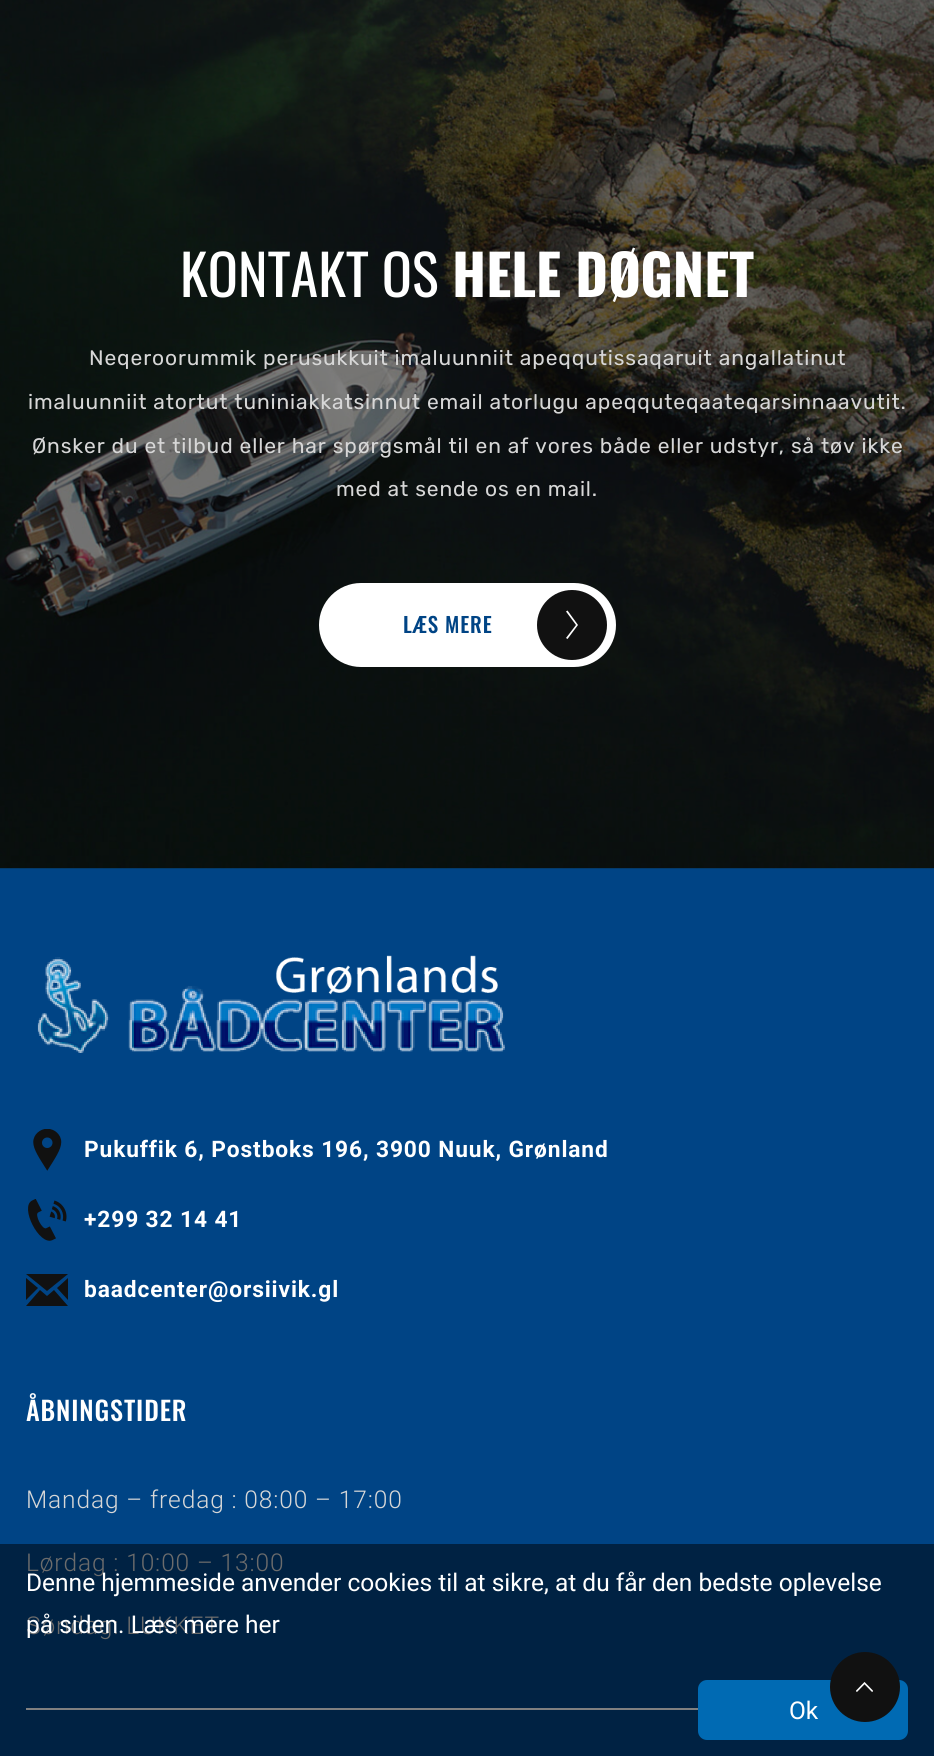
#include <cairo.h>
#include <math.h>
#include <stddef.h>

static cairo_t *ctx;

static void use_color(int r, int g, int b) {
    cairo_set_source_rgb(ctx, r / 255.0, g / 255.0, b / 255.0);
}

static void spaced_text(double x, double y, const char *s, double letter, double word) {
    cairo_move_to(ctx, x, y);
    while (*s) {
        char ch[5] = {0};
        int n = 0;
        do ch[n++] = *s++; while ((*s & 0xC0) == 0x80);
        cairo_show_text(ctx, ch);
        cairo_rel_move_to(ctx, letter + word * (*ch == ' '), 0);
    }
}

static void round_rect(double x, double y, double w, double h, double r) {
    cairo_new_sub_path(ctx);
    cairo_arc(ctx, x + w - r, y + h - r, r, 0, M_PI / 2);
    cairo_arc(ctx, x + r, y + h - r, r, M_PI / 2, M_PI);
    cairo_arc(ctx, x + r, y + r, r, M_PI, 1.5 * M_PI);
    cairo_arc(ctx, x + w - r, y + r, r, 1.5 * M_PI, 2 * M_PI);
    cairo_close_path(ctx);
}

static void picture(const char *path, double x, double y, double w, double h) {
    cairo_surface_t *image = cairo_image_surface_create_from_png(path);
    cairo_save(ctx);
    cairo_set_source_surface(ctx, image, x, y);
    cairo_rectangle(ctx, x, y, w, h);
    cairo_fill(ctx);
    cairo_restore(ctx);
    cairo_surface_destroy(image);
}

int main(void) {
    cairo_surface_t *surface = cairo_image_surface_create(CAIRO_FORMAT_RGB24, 934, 1756);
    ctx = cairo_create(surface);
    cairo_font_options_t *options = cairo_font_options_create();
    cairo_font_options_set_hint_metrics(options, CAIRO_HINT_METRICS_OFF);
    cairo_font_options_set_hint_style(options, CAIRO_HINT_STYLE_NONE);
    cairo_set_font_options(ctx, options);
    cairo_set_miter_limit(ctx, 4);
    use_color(0, 68, 133);
    cairo_paint(ctx);
    use_color(0, 34, 67);
    cairo_rectangle(ctx, 0, 1544, 934, 212);
    cairo_fill(ctx);
    picture("img1.png", 0, 0, 934, 869);
    cairo_select_font_face(ctx, "Oswald", CAIRO_FONT_SLANT_NORMAL, CAIRO_FONT_WEIGHT_NORMAL);
    cairo_set_font_size(ctx, 56);
    use_color(255, 255, 255);
    cairo_move_to(ctx, 180, 297);
    cairo_show_text(ctx, "KONTAKT OS");
    cairo_select_font_face(ctx, "Oswald", CAIRO_FONT_SLANT_NORMAL, CAIRO_FONT_WEIGHT_BOLD);
    cairo_move_to(ctx, 452, 297);
    cairo_show_text(ctx, "HELE DØGNET");
    cairo_select_font_face(ctx, "Rubik Light", CAIRO_FONT_SLANT_NORMAL, CAIRO_FONT_WEIGHT_NORMAL);
    cairo_set_font_size(ctx, 21);
    use_color(215, 215, 215);
    spaced_text(89, 365, "Neqeroorummik perusukkuit imaluunniit apeqqutissaqaruit angallatinut", 0.88, 0);
    spaced_text(28, 409, "imaluunniit atortut tuniniakkatsinnut email atorlugu apeqquteqaateqarsinnaavutit.", 0.88, 0);
    spaced_text(32, 453, "Ønsker du et tilbud eller har spørgsmål til en af vores både eller udstyr, så tøv ikke", 0.88, 0);
    spaced_text(336, 496, "med at sende os en mail.", 0.88, 0);
    use_color(255, 255, 255);
    round_rect(319, 583, 297, 84, 42);
    cairo_fill(ctx);
    cairo_select_font_face(ctx, "Oswald Medium", CAIRO_FONT_SLANT_NORMAL, CAIRO_FONT_WEIGHT_NORMAL);
    use_color(0, 68, 133);
    spaced_text(403, 633, "LÆS MERE", 0.88, 0);
    use_color(17, 17, 17);
    cairo_new_path(ctx);
    cairo_arc(ctx, 572, 625, 35, 0, 2 * M_PI);
    cairo_fill(ctx);
    use_color(255, 255, 255);
    cairo_new_path(ctx);
    cairo_move_to(ctx, 567.5, 639);
    cairo_line_to(ctx, 578, 625);
    cairo_line_to(ctx, 567.5, 610.5);
    cairo_line_to(ctx, 566, 611.5);
    cairo_line_to(ctx, 576, 625);
    cairo_line_to(ctx, 566, 638);
    cairo_close_path(ctx);
    cairo_fill(ctx);
    picture("img2.png", 37, 955, 468, 98);
    picture("img3.png", 33, 1129, 29, 42);
    cairo_select_font_face(ctx, "Roboto", CAIRO_FONT_SLANT_NORMAL, CAIRO_FONT_WEIGHT_BOLD);
    cairo_set_font_size(ctx, 22.75);
    spaced_text(84, 1157, "Pukuffik 6, Postboks 196, 3900 Nuuk, Grønland", 0.88, 0);
    picture("img4.png", 28, 1199, 39, 42);
    spaced_text(84, 1227, "+299 32 14 41", 0.88, 0);
    use_color(17, 17, 17);
    cairo_new_path(ctx);
    cairo_move_to(ctx, 47, 1291);
    cairo_line_to(ctx, 26, 1274);
    cairo_line_to(ctx, 68, 1274);
    cairo_close_path(ctx);
    cairo_move_to(ctx, 38, 1288);
    cairo_line_to(ctx, 26, 1278);
    cairo_line_to(ctx, 26, 1300);
    cairo_close_path(ctx);
    cairo_move_to(ctx, 57, 1288);
    cairo_line_to(ctx, 68, 1300);
    cairo_line_to(ctx, 68, 1278);
    cairo_close_path(ctx);
    cairo_move_to(ctx, 54, 1290);
    cairo_line_to(ctx, 47, 1296);
    cairo_line_to(ctx, 40, 1290);
    cairo_line_to(ctx, 26, 1306);
    cairo_line_to(ctx, 68, 1306);
    cairo_close_path(ctx);
    cairo_fill(ctx);
    use_color(255, 255, 255);
    spaced_text(84, 1297, "baadcenter@orsiivik.gl", 0.88, 0);
    use_color(128, 128, 128);
    cairo_rectangle(ctx, 26, 1708, 672, 2);
    cairo_fill(ctx);
    cairo_select_font_face(ctx, "Oswald Medium", CAIRO_FONT_SLANT_NORMAL, CAIRO_FONT_WEIGHT_NORMAL);
    cairo_set_font_size(ctx, 26.25);
    use_color(255, 255, 255);
    spaced_text(26, 1421, "ÅBNINGSTIDER", 0.88, 0);
    cairo_select_font_face(ctx, "Roboto Light", CAIRO_FONT_SLANT_NORMAL, CAIRO_FONT_WEIGHT_NORMAL);
    cairo_set_font_size(ctx, 24.5);
    use_color(215, 215, 215);
    spaced_text(26, 1508, "Mandag – fredag : 08:00 – 17:00", 0.88, 0);
    use_color(108, 108, 108);
    spaced_text(26, 1571, "Lørdag : 10:00 – 13:00", 0.88, 0);
    spaced_text(26, 1634, "Søndag: LUKKET", 0.88, 0);
    cairo_select_font_face(ctx, "Roboto", CAIRO_FONT_SLANT_NORMAL, CAIRO_FONT_WEIGHT_NORMAL);
    use_color(255, 255, 255);
    cairo_move_to(ctx, 26, 1591);
    cairo_show_text(ctx, "Denne hjemmeside anvender cookies til at sikre, at du får den bedste oplevelse");
    cairo_move_to(ctx, 26, 1633);
    cairo_show_text(ctx, "på siden. Læs mere her");
    use_color(0, 106, 179);
    round_rect(698, 1680, 210, 60, 9);
    cairo_fill(ctx);
    use_color(255, 255, 255);
    cairo_move_to(ctx, 789, 1719);
    cairo_show_text(ctx, "Ok");
    use_color(17, 17, 17);
    cairo_new_path(ctx);
    cairo_arc(ctx, 865, 1687, 35, 0, 2 * M_PI);
    cairo_fill(ctx);
    picture("img5.png", 856, 1682, 17, 10);
    cairo_surface_write_to_png(surface, "result.png");
    cairo_font_options_destroy(options);
    cairo_destroy(ctx);
    cairo_surface_destroy(surface);
    return 0;
}
